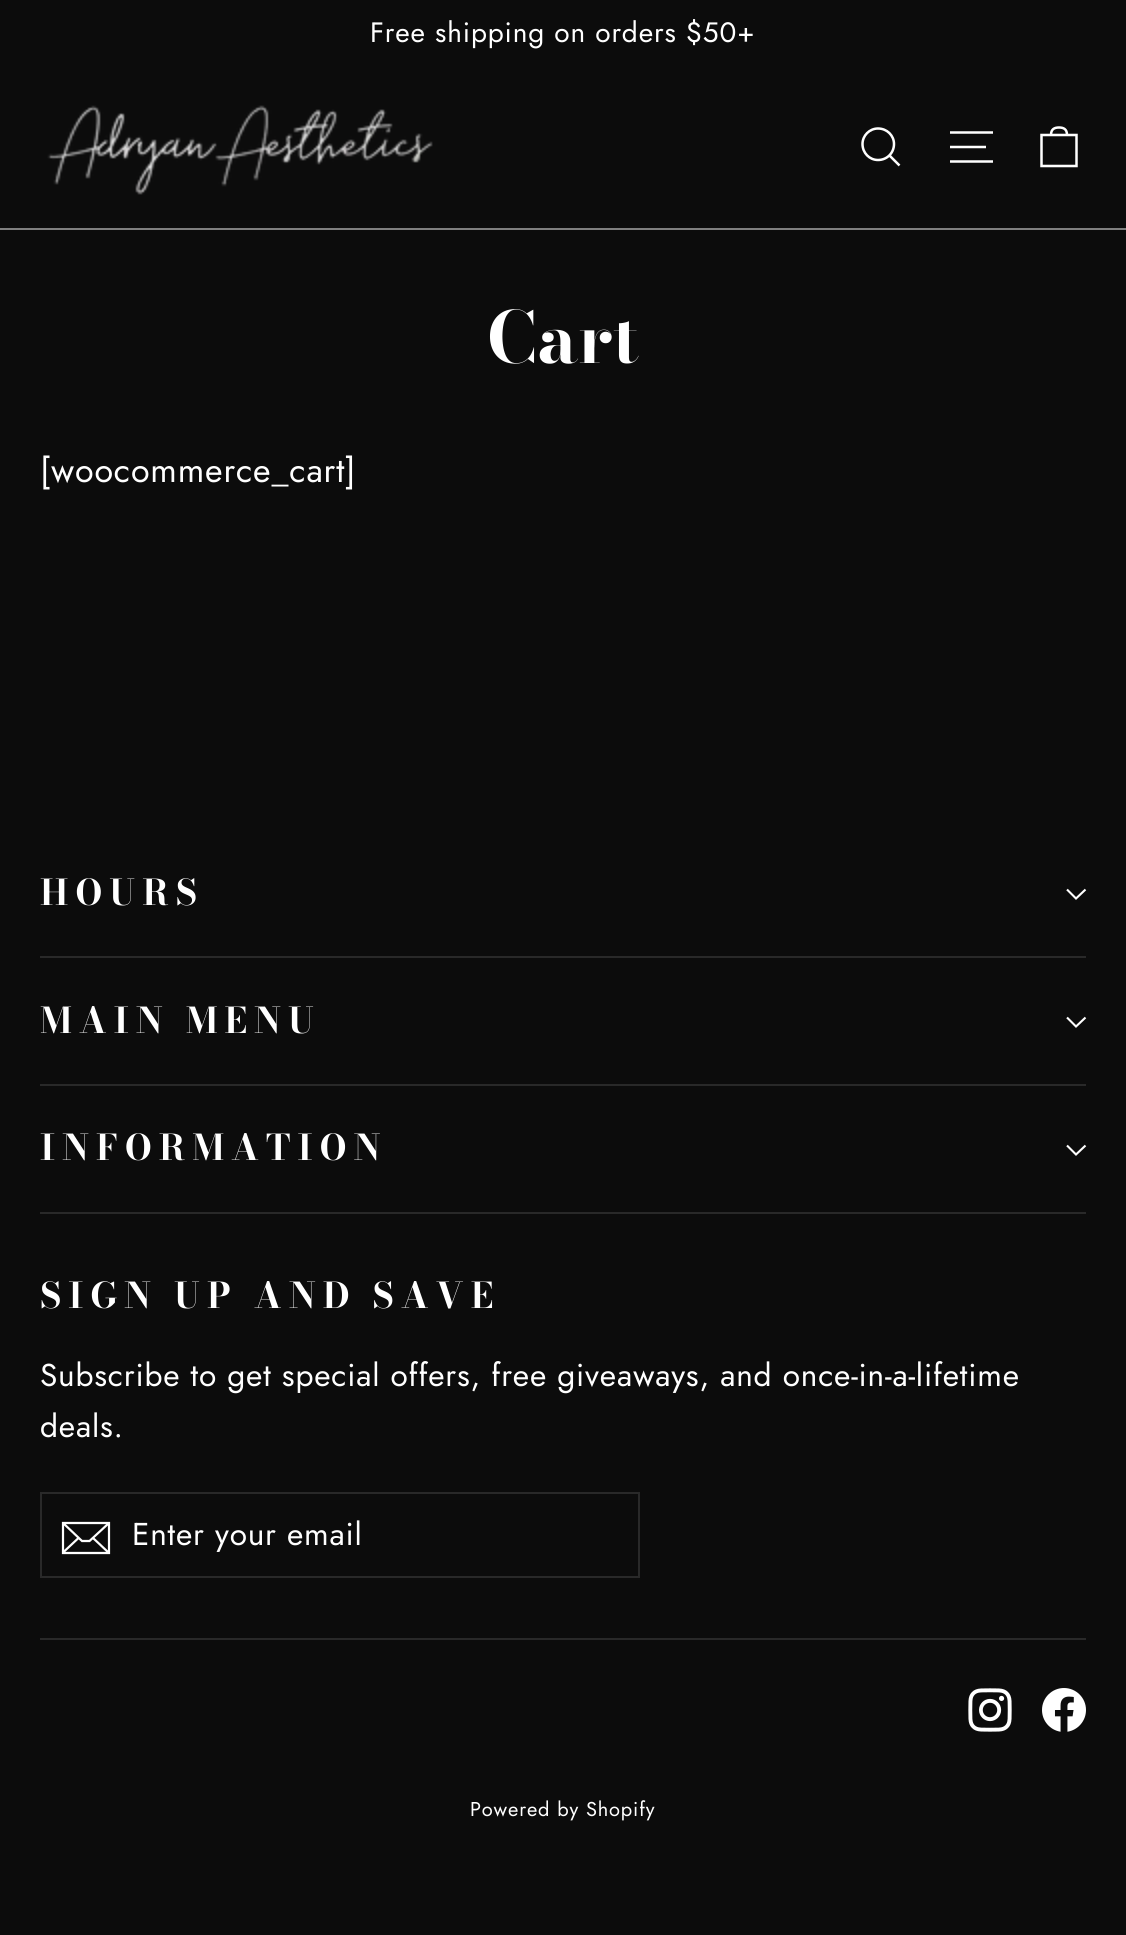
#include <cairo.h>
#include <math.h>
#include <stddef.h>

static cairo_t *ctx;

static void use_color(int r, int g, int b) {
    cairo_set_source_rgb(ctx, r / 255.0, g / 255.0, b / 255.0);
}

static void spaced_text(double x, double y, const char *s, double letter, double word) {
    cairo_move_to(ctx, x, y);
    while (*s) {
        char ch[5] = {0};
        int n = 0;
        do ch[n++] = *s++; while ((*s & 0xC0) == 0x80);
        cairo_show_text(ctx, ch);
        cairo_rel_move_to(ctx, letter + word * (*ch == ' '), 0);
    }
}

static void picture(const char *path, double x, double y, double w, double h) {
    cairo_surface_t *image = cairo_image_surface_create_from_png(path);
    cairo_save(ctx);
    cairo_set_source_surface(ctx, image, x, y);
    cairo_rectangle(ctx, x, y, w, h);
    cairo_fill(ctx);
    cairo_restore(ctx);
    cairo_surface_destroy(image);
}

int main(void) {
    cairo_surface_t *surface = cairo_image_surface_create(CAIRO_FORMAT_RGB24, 1126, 1935);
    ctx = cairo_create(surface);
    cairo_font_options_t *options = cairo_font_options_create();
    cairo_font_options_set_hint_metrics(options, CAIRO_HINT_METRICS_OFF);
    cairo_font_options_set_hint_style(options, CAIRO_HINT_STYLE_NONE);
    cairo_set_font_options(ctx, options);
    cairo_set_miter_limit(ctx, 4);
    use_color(12, 12, 12);
    cairo_paint(ctx);
    cairo_select_font_face(ctx, "Jost", CAIRO_FONT_SLANT_NORMAL, CAIRO_FONT_WEIGHT_NORMAL);
    cairo_set_font_size(ctx, 28);
    use_color(255, 255, 255);
    spaced_text(370, 42, "Free shipping on orders $50+", 0.85, 0);
    use_color(128, 128, 128);
    cairo_rectangle(ctx, 0, 228, 1126, 2);
    cairo_fill(ctx);
    picture("img1.png", 47, 105, 386, 90);
    cairo_new_path(ctx);
    cairo_move_to(ctx, 894, 144);
    cairo_curve_to(ctx, 894, 153, 887, 160, 878, 160);
    cairo_curve_to(ctx, 869.5, 160, 862.5, 153, 862.5, 144);
    cairo_curve_to(ctx, 862.5, 135.5, 869.5, 128.5, 878, 128.5);
    cairo_curve_to(ctx, 887, 128.5, 894, 135.5, 894, 144);
    cairo_close_path(ctx);
    cairo_move_to(ctx, 899.5, 165.5);
    cairo_line_to(ctx, 889.5, 155.5);
    use_color(255, 255, 255);
    cairo_set_line_width(ctx, 2.5);
    cairo_stroke(ctx);
    cairo_new_path(ctx);
    cairo_move_to(ctx, 950, 132.5);
    cairo_line_to(ctx, 993, 132.5);
    cairo_move_to(ctx, 950, 147);
    cairo_line_to(ctx, 986, 147);
    cairo_move_to(ctx, 950, 161.5);
    cairo_line_to(ctx, 993, 161.5);
    cairo_stroke(ctx);
    cairo_new_path(ctx);
    cairo_move_to(ctx, 1041.5, 135);
    cairo_line_to(ctx, 1076.5, 135);
    cairo_line_to(ctx, 1076.5, 166);
    cairo_line_to(ctx, 1041.5, 166);
    cairo_close_path(ctx);
    cairo_move_to(ctx, 1051, 135);
    cairo_curve_to(ctx, 1051, 129, 1054.5, 127.5, 1059, 127.5);
    cairo_curve_to(ctx, 1063.5, 127.5, 1067, 129, 1067, 135);
    cairo_stroke(ctx);
    cairo_select_font_face(ctx, "Bodoni Moda", CAIRO_FONT_SLANT_NORMAL, CAIRO_FONT_WEIGHT_BOLD);
    cairo_set_font_size(ctx, 71);
    cairo_move_to(ctx, 487, 363);
    cairo_show_text(ctx, "Cart");
    cairo_select_font_face(ctx, "Jost", CAIRO_FONT_SLANT_NORMAL, CAIRO_FONT_WEIGHT_NORMAL);
    cairo_set_font_size(ctx, 34);
    spaced_text(40, 482, "[woocommerce_cart]", 0.85, 0);
    cairo_select_font_face(ctx, "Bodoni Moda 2", CAIRO_FONT_SLANT_NORMAL, CAIRO_FONT_WEIGHT_BOLD);
    cairo_set_font_size(ctx, 35.25);
    spaced_text(40, 905, "HOURS", 7, 0);
    cairo_new_path(ctx);
    cairo_move_to(ctx, 1067, 889.5);
    cairo_line_to(ctx, 1076, 898.5);
    cairo_line_to(ctx, 1085.5, 889.5);
    cairo_set_line_width(ctx, 2.1);
    cairo_stroke(ctx);
    use_color(41, 41, 41);
    cairo_rectangle(ctx, 40, 956, 1046, 2);
    cairo_fill(ctx);
    use_color(255, 255, 255);
    spaced_text(40, 1033, "MAIN MENU", 7, 0);
    cairo_new_path(ctx);
    cairo_move_to(ctx, 1067, 1017.5);
    cairo_line_to(ctx, 1076, 1026.5);
    cairo_line_to(ctx, 1085.5, 1017.5);
    cairo_stroke(ctx);
    use_color(41, 41, 41);
    cairo_rectangle(ctx, 40, 1084, 1046, 2);
    cairo_fill(ctx);
    use_color(255, 255, 255);
    spaced_text(40, 1160, "INFORMATION", 7, 0);
    cairo_new_path(ctx);
    cairo_move_to(ctx, 1067, 1145.5);
    cairo_line_to(ctx, 1076, 1154.5);
    cairo_line_to(ctx, 1085.5, 1145.5);
    cairo_stroke(ctx);
    use_color(41, 41, 41);
    cairo_rectangle(ctx, 40, 1212, 1046, 2);
    cairo_fill(ctx);
    use_color(255, 255, 255);
    spaced_text(40, 1308, "SIGN UP AND SAVE", 7, 0);
    cairo_select_font_face(ctx, "Jost", CAIRO_FONT_SLANT_NORMAL, CAIRO_FONT_WEIGHT_NORMAL);
    cairo_set_font_size(ctx, 31.6);
    spaced_text(40, 1386, "Subscribe to get special offers, free giveaways, and once-in-a-lifetime", 0.8, 0);
    spaced_text(40, 1437, "deals.", 0.8, 0);
    cairo_rectangle(ctx, 41, 1493, 598, 84);
    use_color(41, 41, 41);
    cairo_set_line_width(ctx, 2);
    cairo_stroke(ctx);
    cairo_new_path(ctx);
    cairo_move_to(ctx, 109, 1553);
    cairo_line_to(ctx, 63, 1553);
    cairo_line_to(ctx, 63, 1523);
    cairo_line_to(ctx, 109, 1523);
    cairo_close_path(ctx);
    cairo_move_to(ctx, 63, 1523);
    cairo_line_to(ctx, 82, 1541);
    cairo_line_to(ctx, 89.5, 1541);
    cairo_line_to(ctx, 109, 1523);
    cairo_move_to(ctx, 78.5, 1538);
    cairo_line_to(ctx, 63, 1552.5);
    cairo_move_to(ctx, 109, 1553);
    cairo_line_to(ctx, 93, 1538);
    use_color(255, 255, 255);
    cairo_set_line_width(ctx, 2.2);
    cairo_stroke(ctx);
    spaced_text(132, 1545, "Enter your email", 0.8, 0);
    use_color(41, 41, 41);
    cairo_rectangle(ctx, 40, 1638, 1046, 2);
    cairo_fill(ctx);
    picture("img2.png", 968, 1688, 44, 44);
    picture("img3.png", 1042, 1688, 44, 44);
    cairo_set_font_size(ctx, 20);
    use_color(255, 255, 255);
    spaced_text(470, 1816, "Powered by Shopify", 0.85, 0);
    cairo_surface_write_to_png(surface, "result.png");
    cairo_font_options_destroy(options);
    cairo_destroy(ctx);
    cairo_surface_destroy(surface);
    return 0;
}
